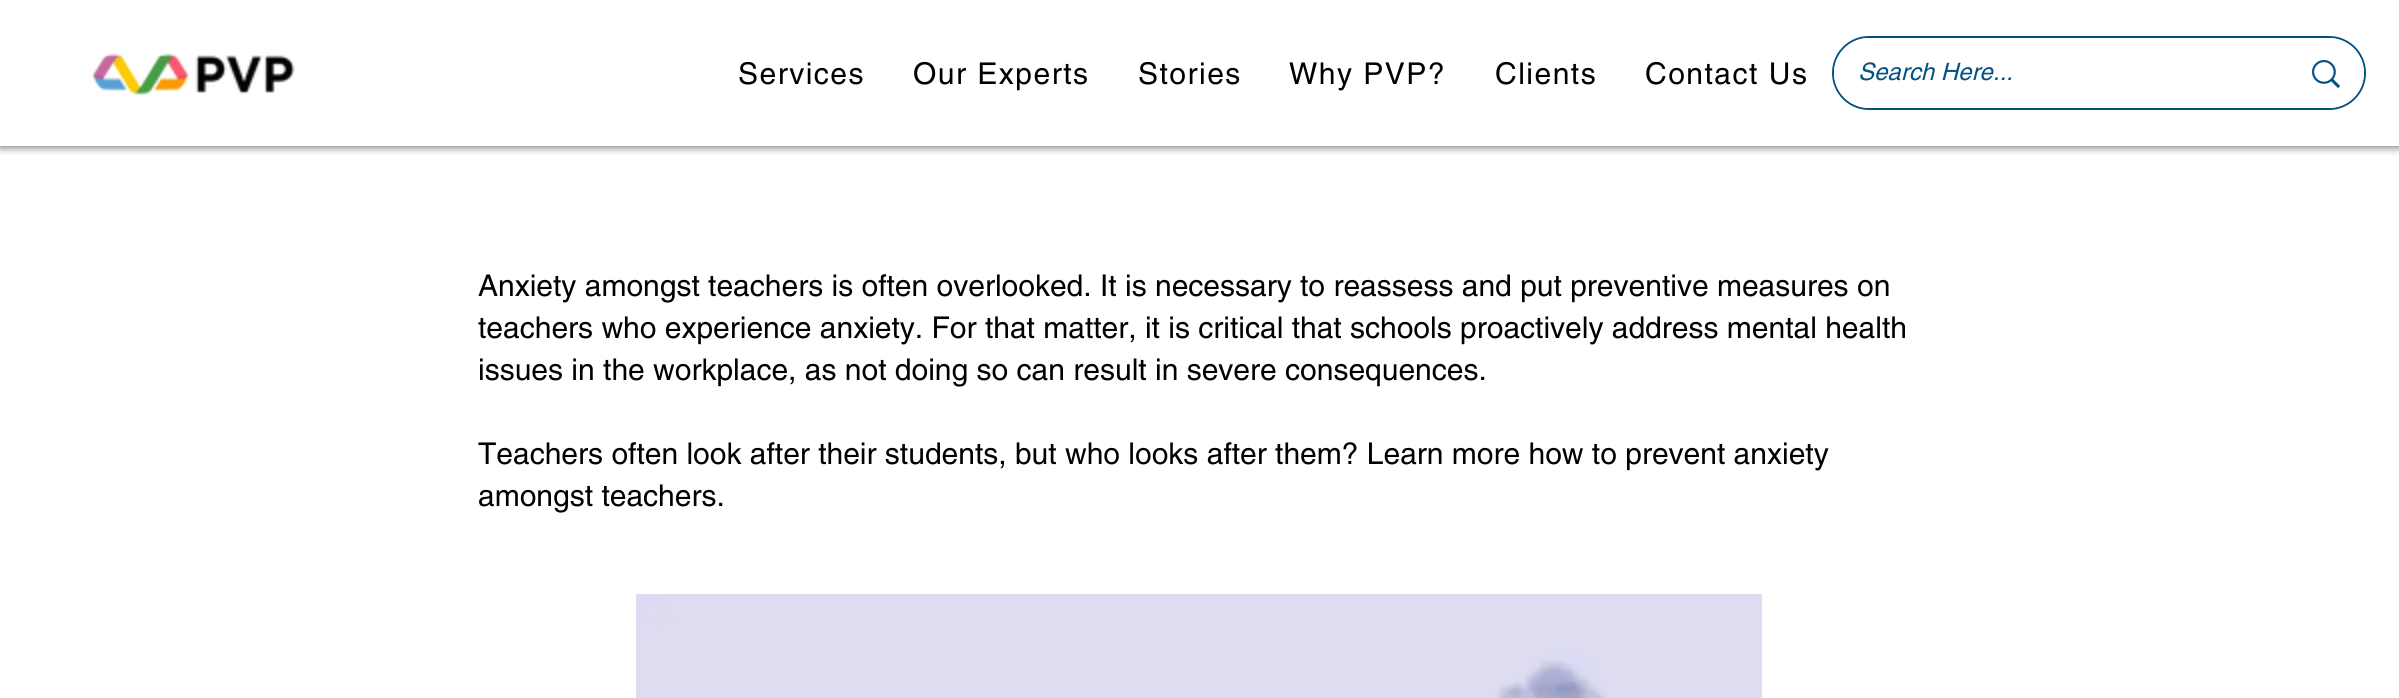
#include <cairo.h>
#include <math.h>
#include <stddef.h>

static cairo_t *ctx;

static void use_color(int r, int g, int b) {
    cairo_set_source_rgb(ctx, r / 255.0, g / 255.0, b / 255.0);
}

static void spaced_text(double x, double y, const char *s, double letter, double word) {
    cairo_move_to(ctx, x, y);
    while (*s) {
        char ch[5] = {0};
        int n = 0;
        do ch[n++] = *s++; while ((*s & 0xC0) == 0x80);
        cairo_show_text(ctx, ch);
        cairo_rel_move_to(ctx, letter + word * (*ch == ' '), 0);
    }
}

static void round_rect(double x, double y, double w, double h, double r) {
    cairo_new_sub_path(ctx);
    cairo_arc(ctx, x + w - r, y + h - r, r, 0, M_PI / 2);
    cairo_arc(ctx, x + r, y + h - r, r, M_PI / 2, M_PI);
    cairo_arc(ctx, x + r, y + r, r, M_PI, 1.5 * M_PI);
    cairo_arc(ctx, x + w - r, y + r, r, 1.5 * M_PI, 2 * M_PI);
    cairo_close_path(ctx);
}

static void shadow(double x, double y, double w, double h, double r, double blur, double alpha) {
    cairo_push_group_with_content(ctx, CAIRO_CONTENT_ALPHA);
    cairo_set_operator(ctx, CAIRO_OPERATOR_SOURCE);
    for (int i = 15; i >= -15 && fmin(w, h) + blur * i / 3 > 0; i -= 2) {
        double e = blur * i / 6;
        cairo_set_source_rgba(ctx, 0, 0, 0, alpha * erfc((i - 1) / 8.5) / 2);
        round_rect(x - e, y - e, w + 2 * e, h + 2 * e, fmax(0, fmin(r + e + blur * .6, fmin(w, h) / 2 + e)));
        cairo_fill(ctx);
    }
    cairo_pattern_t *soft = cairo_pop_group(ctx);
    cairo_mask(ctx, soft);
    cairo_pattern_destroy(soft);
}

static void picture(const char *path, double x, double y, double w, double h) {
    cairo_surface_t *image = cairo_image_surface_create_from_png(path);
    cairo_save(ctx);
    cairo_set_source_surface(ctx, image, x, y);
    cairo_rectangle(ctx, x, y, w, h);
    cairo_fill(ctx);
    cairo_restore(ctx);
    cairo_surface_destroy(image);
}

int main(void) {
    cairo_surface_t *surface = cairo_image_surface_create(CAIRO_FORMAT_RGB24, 2399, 698);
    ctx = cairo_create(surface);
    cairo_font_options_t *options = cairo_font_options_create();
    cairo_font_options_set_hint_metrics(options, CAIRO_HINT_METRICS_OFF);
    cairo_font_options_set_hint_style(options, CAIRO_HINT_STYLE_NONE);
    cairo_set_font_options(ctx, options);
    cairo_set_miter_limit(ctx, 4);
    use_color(255, 255, 255);
    cairo_paint(ctx);
    cairo_save(ctx);
    cairo_rectangle(ctx, 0, 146, 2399, 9);
    cairo_clip(ctx);
    use_color(0, 0, 0);
    shadow(0, 0, 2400, 146, 0, 5, 0.7);
    cairo_restore(ctx);
    picture("img1.png", 91, 53, 204, 42);
    cairo_select_font_face(ctx, "helvetica", CAIRO_FONT_SLANT_NORMAL, CAIRO_FONT_WEIGHT_NORMAL);
    cairo_set_font_size(ctx, 30);
    use_color(0, 0, 0);
    spaced_text(738, 84, "Services", 1.5, 0);
    spaced_text(913, 84, "Our Experts", 1.5, 0);
    spaced_text(1138, 84, "Stories", 1.5, 0);
    spaced_text(1289, 84, "Why PVP?", 1.5, 0);
    spaced_text(1495, 84, "Clients", 1.5, 0);
    spaced_text(1645, 84, "Contact Us", 1.5, 0);
    round_rect(1833, 37, 532, 72, 36);
    use_color(4, 81, 132);
    cairo_stroke(ctx);
    use_color(255, 255, 255);
    round_rect(1834, 38, 530, 70, 35);
    cairo_fill(ctx);
    cairo_select_font_face(ctx, "helvetica", CAIRO_FONT_SLANT_ITALIC, CAIRO_FONT_WEIGHT_NORMAL);
    cairo_set_font_size(ctx, 24);
    use_color(4, 81, 132);
    cairo_move_to(ctx, 1858, 80);
    cairo_show_text(ctx, "Search Here...");
    picture("img2.png", 2312, 60, 28, 28);
    cairo_select_font_face(ctx, "helvetica", CAIRO_FONT_SLANT_NORMAL, CAIRO_FONT_WEIGHT_NORMAL);
    cairo_set_font_size(ctx, 30);
    use_color(0, 0, 0);
    cairo_move_to(ctx, 478, 296);
    cairo_show_text(ctx, "Anxiety amongst teachers is often overlooked. It is necessary to reassess and put preventive measures on");
    cairo_move_to(ctx, 478, 338);
    cairo_show_text(ctx, "teachers who experience anxiety. For that matter, it is critical that schools proactively address mental health");
    cairo_move_to(ctx, 478, 380);
    cairo_show_text(ctx, "issues in the workplace, as not doing so can result in severe consequences.");
    cairo_move_to(ctx, 478, 464);
    cairo_show_text(ctx, "Teachers often look after their students, but who looks after them? Learn more how to prevent anxiety");
    cairo_move_to(ctx, 478, 506);
    cairo_show_text(ctx, "amongst teachers.");
    picture("img3.png", 636, 594, 1126, 104);
    cairo_surface_write_to_png(surface, "result.png");
    cairo_font_options_destroy(options);
    cairo_destroy(ctx);
    cairo_surface_destroy(surface);
    return 0;
}
